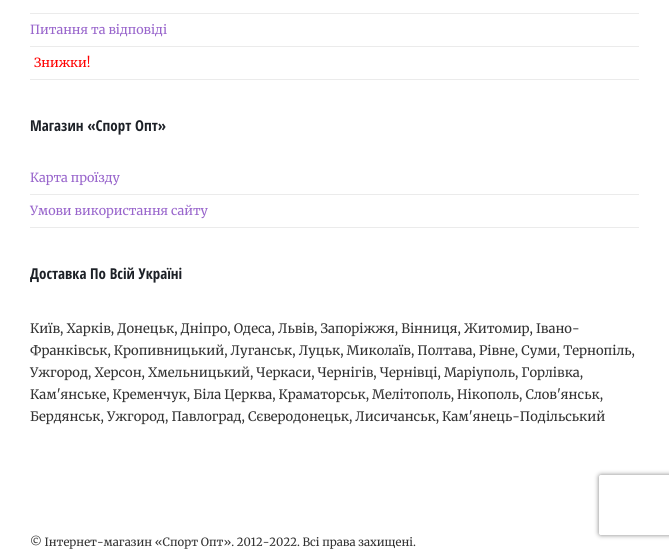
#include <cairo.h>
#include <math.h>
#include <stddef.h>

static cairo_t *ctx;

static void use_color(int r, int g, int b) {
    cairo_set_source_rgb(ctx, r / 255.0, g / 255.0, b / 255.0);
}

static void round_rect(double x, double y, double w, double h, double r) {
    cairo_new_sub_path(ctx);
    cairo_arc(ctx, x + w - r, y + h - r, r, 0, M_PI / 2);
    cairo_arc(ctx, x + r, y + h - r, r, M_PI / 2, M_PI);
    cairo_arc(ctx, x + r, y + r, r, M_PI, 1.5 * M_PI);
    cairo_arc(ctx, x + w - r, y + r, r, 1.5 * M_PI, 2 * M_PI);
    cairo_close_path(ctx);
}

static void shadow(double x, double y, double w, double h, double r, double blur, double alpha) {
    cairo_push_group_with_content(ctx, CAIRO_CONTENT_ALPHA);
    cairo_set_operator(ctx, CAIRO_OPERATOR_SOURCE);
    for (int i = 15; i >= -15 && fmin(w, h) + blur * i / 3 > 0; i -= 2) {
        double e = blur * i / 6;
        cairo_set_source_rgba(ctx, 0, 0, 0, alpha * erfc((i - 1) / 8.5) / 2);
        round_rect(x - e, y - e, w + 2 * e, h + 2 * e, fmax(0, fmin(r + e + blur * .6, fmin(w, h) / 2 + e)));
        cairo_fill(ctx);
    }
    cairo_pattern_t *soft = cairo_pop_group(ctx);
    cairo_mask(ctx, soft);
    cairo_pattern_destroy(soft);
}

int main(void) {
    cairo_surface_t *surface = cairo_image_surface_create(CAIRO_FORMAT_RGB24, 669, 549);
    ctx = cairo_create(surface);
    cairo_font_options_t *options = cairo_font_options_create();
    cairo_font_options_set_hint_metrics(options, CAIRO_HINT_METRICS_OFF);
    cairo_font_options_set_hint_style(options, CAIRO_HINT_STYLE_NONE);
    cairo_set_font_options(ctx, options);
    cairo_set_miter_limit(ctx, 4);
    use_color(255, 255, 255);
    cairo_paint(ctx);
    use_color(235, 235, 235);
    cairo_rectangle(ctx, 30, 79, 609, 1);
    cairo_fill(ctx);
    cairo_rectangle(ctx, 30, 13, 609, 1);
    cairo_fill(ctx);
    cairo_select_font_face(ctx, "Merriweather", CAIRO_FONT_SLANT_NORMAL, CAIRO_FONT_WEIGHT_NORMAL);
    cairo_set_font_size(ctx, 12.6);
    use_color(153, 102, 204);
    cairo_move_to(ctx, 30, 34);
    cairo_show_text(ctx, "Питання та відповіді");
    use_color(235, 235, 235);
    cairo_rectangle(ctx, 30, 46, 609, 1);
    cairo_fill(ctx);
    use_color(255, 0, 0);
    cairo_move_to(ctx, 34, 67);
    cairo_show_text(ctx, "Знижки!");
    cairo_select_font_face(ctx, "Open Sans Condensed", CAIRO_FONT_SLANT_NORMAL, CAIRO_FONT_WEIGHT_BOLD);
    cairo_set_font_size(ctx, 15);
    use_color(29, 33, 39);
    cairo_move_to(ctx, 30, 131);
    cairo_show_text(ctx, "Магазин «Спорт Опт»");
    use_color(235, 235, 235);
    cairo_rectangle(ctx, 30, 227, 609, 1);
    cairo_fill(ctx);
    cairo_select_font_face(ctx, "Merriweather", CAIRO_FONT_SLANT_NORMAL, CAIRO_FONT_WEIGHT_NORMAL);
    cairo_set_font_size(ctx, 12.6);
    use_color(153, 102, 204);
    cairo_move_to(ctx, 30, 182);
    cairo_show_text(ctx, "Карта проїзду");
    use_color(235, 235, 235);
    cairo_rectangle(ctx, 30, 194, 609, 1);
    cairo_fill(ctx);
    use_color(153, 102, 204);
    cairo_move_to(ctx, 30, 215);
    cairo_show_text(ctx, "Умови використання сайту");
    cairo_select_font_face(ctx, "Open Sans Condensed", CAIRO_FONT_SLANT_NORMAL, CAIRO_FONT_WEIGHT_BOLD);
    cairo_set_font_size(ctx, 15);
    use_color(29, 33, 39);
    cairo_move_to(ctx, 30, 279);
    cairo_show_text(ctx, "Доставка По Всій Україні");
    cairo_select_font_face(ctx, "Merriweather", CAIRO_FONT_SLANT_NORMAL, CAIRO_FONT_WEIGHT_NORMAL);
    cairo_set_font_size(ctx, 13);
    use_color(51, 51, 51);
    cairo_move_to(ctx, 30, 333);
    cairo_show_text(ctx, "Київ, Харків, Донецьк, Дніпро, Одеса, Львів, Запоріжжя, Вінниця, Житомир, Івано-");
    cairo_move_to(ctx, 30, 355);
    cairo_show_text(ctx, "Франківськ, Кропивницький, Луганськ, Луцьк, Миколаїв, Полтава, Рівне, Суми, Тернопіль,");
    cairo_move_to(ctx, 30, 377);
    cairo_show_text(ctx, "Ужгород, Херсон, Хмельницький, Черкаси, Чернігів, Чернівці, Маріуполь, Горлівка,");
    cairo_move_to(ctx, 30, 399);
    cairo_show_text(ctx, "Кам'янське, Кременчук, Біла Церква, Краматорськ, Мелітополь, Нікополь, Слов'янськ,");
    cairo_move_to(ctx, 30, 421);
    cairo_show_text(ctx, "Бердянськ, Ужгород, Павлоград, Сєверодонецьк, Лисичанськ, Кам'янець-Подільський");
    cairo_set_font_size(ctx, 11.35);
    cairo_move_to(ctx, 30, 546);
    cairo_show_text(ctx, "© Інтернет-магазин «Спорт Опт». 2012-2022. Всі права захищені.");
    cairo_save(ctx);
    cairo_set_fill_rule(ctx, CAIRO_FILL_RULE_EVEN_ODD);
    cairo_new_path(ctx);
    cairo_move_to(ctx, 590, 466);
    cairo_line_to(ctx, 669, 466);
    cairo_line_to(ctx, 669, 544);
    cairo_line_to(ctx, 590, 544);
    cairo_close_path(ctx);
    cairo_move_to(ctx, 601, 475);
    cairo_line_to(ctx, 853, 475);
    cairo_curve_to(ctx, 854, 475, 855, 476, 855, 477);
    cairo_line_to(ctx, 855, 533);
    cairo_curve_to(ctx, 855, 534, 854, 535, 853, 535);
    cairo_line_to(ctx, 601, 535);
    cairo_curve_to(ctx, 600, 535, 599, 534, 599, 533);
    cairo_line_to(ctx, 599, 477);
    cairo_curve_to(ctx, 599, 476, 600, 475, 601, 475);
    cairo_close_path(ctx);
    cairo_clip(ctx);
    use_color(128, 128, 128);
    shadow(599, 475, 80, 60, 2, 2.5, 1);
    cairo_restore(ctx);
    cairo_surface_write_to_png(surface, "result.png");
    cairo_font_options_destroy(options);
    cairo_destroy(ctx);
    cairo_surface_destroy(surface);
    return 0;
}
